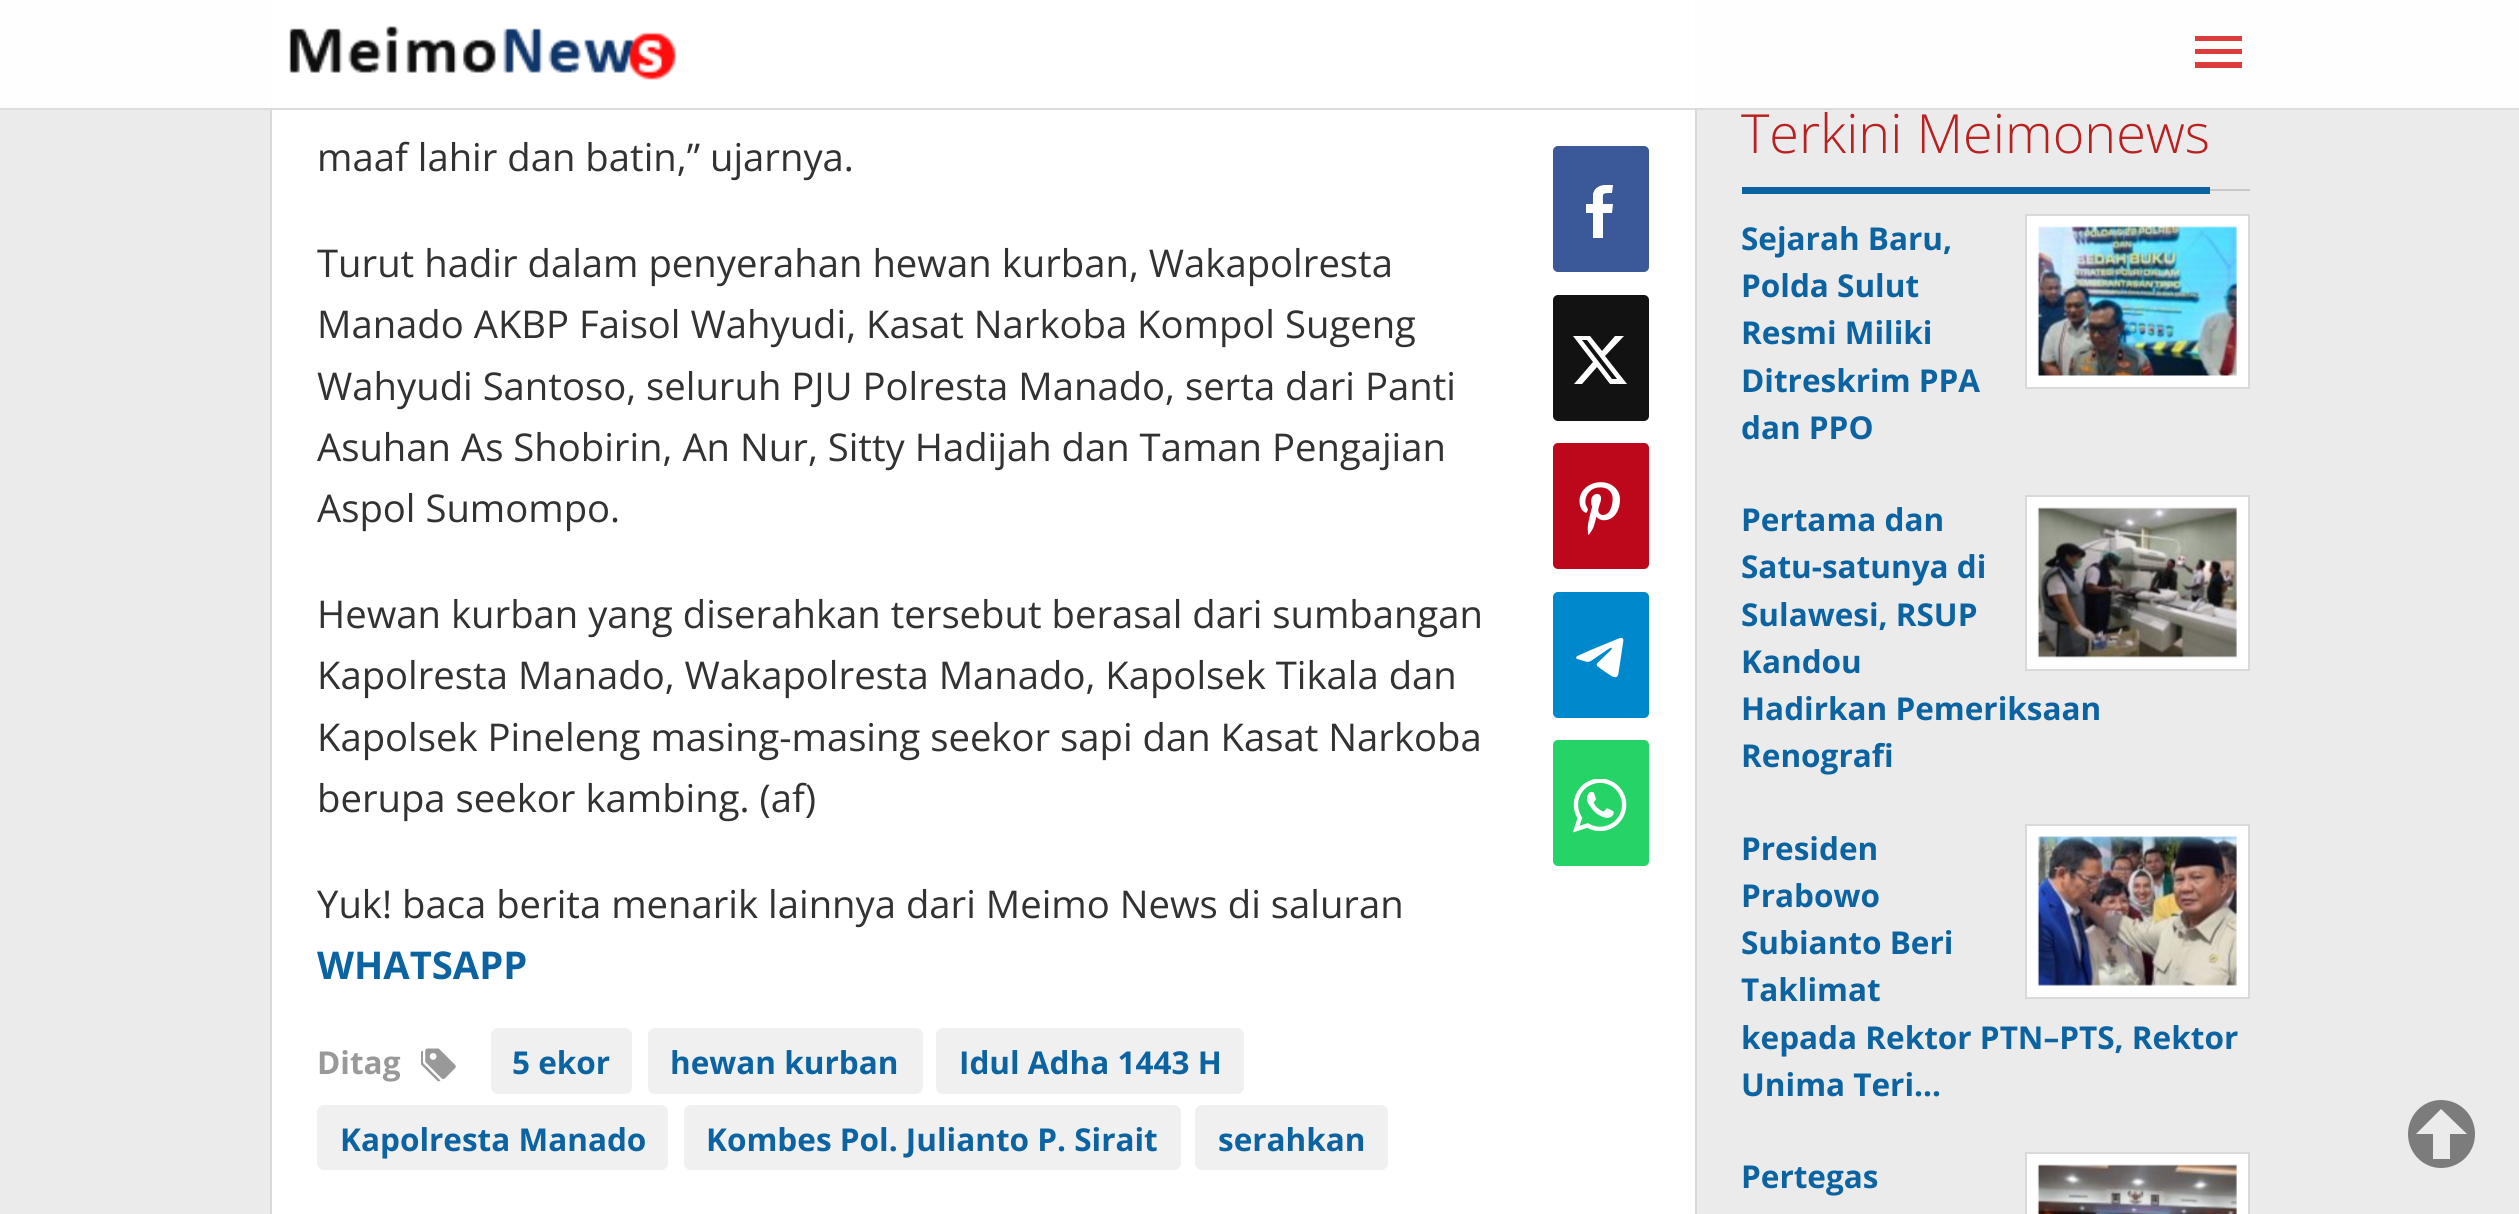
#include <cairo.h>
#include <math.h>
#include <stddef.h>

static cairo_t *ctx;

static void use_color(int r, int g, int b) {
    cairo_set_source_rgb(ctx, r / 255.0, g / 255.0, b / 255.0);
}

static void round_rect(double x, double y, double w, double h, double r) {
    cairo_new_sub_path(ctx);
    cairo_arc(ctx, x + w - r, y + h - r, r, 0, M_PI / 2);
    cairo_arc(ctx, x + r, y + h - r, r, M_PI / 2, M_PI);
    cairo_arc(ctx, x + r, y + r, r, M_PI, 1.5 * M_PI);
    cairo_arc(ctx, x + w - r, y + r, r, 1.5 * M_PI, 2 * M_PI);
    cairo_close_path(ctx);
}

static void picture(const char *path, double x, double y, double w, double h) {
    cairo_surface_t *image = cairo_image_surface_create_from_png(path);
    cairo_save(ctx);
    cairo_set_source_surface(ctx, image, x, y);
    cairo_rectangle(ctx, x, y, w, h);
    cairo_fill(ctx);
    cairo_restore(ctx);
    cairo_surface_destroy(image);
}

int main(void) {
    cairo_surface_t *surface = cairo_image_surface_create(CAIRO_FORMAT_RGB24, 2519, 1214);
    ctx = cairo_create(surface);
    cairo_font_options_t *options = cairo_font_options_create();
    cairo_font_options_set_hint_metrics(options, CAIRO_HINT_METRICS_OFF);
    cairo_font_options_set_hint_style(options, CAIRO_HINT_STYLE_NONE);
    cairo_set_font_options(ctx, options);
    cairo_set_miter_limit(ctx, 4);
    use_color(235, 235, 235);
    cairo_paint(ctx);
    use_color(255, 255, 255);
    cairo_rectangle(ctx, 271, -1, 1425, 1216);
    cairo_fill_preserve(ctx);
    use_color(217, 217, 217);
    cairo_stroke(ctx);
    cairo_set_source_rgba(ctx, 1, 1, 1, 0.95);
    cairo_rectangle(ctx, 0, 0, 2519, 110);
    cairo_fill(ctx);
    cairo_set_source_rgba(ctx, 0, 0, 0, 0.14);
    cairo_rectangle(ctx, 0, 108, 2519, 2);
    cairo_fill(ctx);
    picture("img1.png", 289, 25, 387, 55);
    use_color(222, 60, 60);
    cairo_new_path(ctx);
    cairo_move_to(ctx, 2195, 68);
    cairo_line_to(ctx, 2242, 68);
    cairo_line_to(ctx, 2242, 62);
    cairo_line_to(ctx, 2195, 62);
    cairo_close_path(ctx);
    cairo_move_to(ctx, 2195, 54);
    cairo_line_to(ctx, 2242, 54);
    cairo_line_to(ctx, 2242, 49);
    cairo_line_to(ctx, 2195, 49);
    cairo_close_path(ctx);
    cairo_move_to(ctx, 2195, 36);
    cairo_line_to(ctx, 2195, 41);
    cairo_line_to(ctx, 2242, 41);
    cairo_line_to(ctx, 2242, 36);
    cairo_close_path(ctx);
    cairo_fill(ctx);
    cairo_select_font_face(ctx, "Open Sans", CAIRO_FONT_SLANT_NORMAL, CAIRO_FONT_WEIGHT_NORMAL);
    cairo_set_font_size(ctx, 38.25);
    use_color(50, 50, 51);
    cairo_move_to(ctx, 317, 171);
    cairo_show_text(ctx, "maaf lahir dan batin,” ujarnya.");
    cairo_move_to(ctx, 317, 277);
    cairo_show_text(ctx, "Turut hadir dalam penyerahan hewan kurban, Wakapolresta");
    cairo_move_to(ctx, 317, 338);
    cairo_show_text(ctx, "Manado AKBP Faisol Wahyudi, Kasat Narkoba Kompol Sugeng");
    cairo_move_to(ctx, 317, 400);
    cairo_show_text(ctx, "Wahyudi Santoso, seluruh PJU Polresta Manado, serta dari Panti");
    cairo_move_to(ctx, 317, 461);
    cairo_show_text(ctx, "Asuhan As Shobirin, An Nur, Sitty Hadijah dan Taman Pengajian");
    cairo_move_to(ctx, 317, 522);
    cairo_show_text(ctx, "Aspol Sumompo.");
    cairo_move_to(ctx, 317, 628);
    cairo_show_text(ctx, "Hewan kurban yang diserahkan tersebut berasal dari sumbangan");
    cairo_move_to(ctx, 317, 689);
    cairo_show_text(ctx, "Kapolresta Manado, Wakapolresta Manado, Kapolsek Tikala dan");
    cairo_move_to(ctx, 317, 751);
    cairo_show_text(ctx, "Kapolsek Pineleng masing-masing seekor sapi dan Kasat Narkoba");
    cairo_move_to(ctx, 317, 812);
    cairo_show_text(ctx, "berupa seekor kambing. (af)");
    cairo_move_to(ctx, 317, 918);
    cairo_show_text(ctx, "Yuk! baca berita menarik lainnya dari Meimo News di saluran");
    cairo_select_font_face(ctx, "Open Sans", CAIRO_FONT_SLANT_NORMAL, CAIRO_FONT_WEIGHT_BOLD);
    use_color(11, 99, 161);
    cairo_move_to(ctx, 317, 979);
    cairo_show_text(ctx, "WHATSAPP");
    cairo_set_font_size(ctx, 31.5);
    use_color(153, 153, 153);
    cairo_move_to(ctx, 317, 1074);
    cairo_show_text(ctx, "Ditag");
    picture("img2.png", 421, 1048, 35, 34);
    use_color(240, 240, 240);
    round_rect(491, 1028, 141, 66, 7);
    cairo_fill(ctx);
    use_color(11, 99, 161);
    cairo_move_to(ctx, 512, 1074);
    cairo_show_text(ctx, "5 ekor");
    use_color(240, 240, 240);
    round_rect(648, 1028, 275, 66, 7);
    cairo_fill(ctx);
    use_color(11, 99, 161);
    cairo_move_to(ctx, 670, 1074);
    cairo_show_text(ctx, "hewan kurban");
    use_color(240, 240, 240);
    round_rect(936, 1028, 308, 66, 7);
    cairo_fill(ctx);
    use_color(11, 99, 161);
    cairo_move_to(ctx, 959, 1074);
    cairo_show_text(ctx, "Idul Adha 1443 H");
    use_color(240, 240, 240);
    round_rect(317, 1105, 351, 65, 7);
    cairo_fill(ctx);
    use_color(11, 99, 161);
    cairo_move_to(ctx, 340, 1151);
    cairo_show_text(ctx, "Kapolresta Manado");
    use_color(240, 240, 240);
    round_rect(684, 1105, 497, 65, 7);
    cairo_fill(ctx);
    use_color(11, 99, 161);
    cairo_move_to(ctx, 706, 1151);
    cairo_show_text(ctx, "Kombes Pol. Julianto P. Sirait");
    use_color(240, 240, 240);
    round_rect(1195, 1105, 193, 65, 7);
    cairo_fill(ctx);
    use_color(11, 99, 161);
    cairo_move_to(ctx, 1218, 1151);
    cairo_show_text(ctx, "serahkan");
    use_color(59, 89, 152);
    round_rect(1553, 146, 96, 126, 5);
    cairo_fill(ctx);
    cairo_save(ctx);
    cairo_rectangle(ctx, 1586, 185, 27, 54);
    cairo_clip(ctx);
    use_color(255, 255, 255);
    cairo_new_path(ctx);
    cairo_move_to(ctx, 1593, 238);
    cairo_line_to(ctx, 1593, 213);
    cairo_line_to(ctx, 1586, 213);
    cairo_line_to(ctx, 1586, 204);
    cairo_line_to(ctx, 1593, 204);
    cairo_line_to(ctx, 1593, 194);
    cairo_curve_to(ctx, 1595, 185, 1605, 184, 1613, 185);
    cairo_line_to(ctx, 1612, 193);
    cairo_curve_to(ctx, 1601, 193, 1603, 193, 1603, 204);
    cairo_line_to(ctx, 1613, 204);
    cairo_line_to(ctx, 1612, 213);
    cairo_line_to(ctx, 1603, 213);
    cairo_line_to(ctx, 1603, 238);
    cairo_line_to(ctx, 1593, 238);
    cairo_fill(ctx);
    cairo_restore(ctx);
    use_color(18, 18, 18);
    round_rect(1553, 295, 96, 126, 5);
    cairo_fill(ctx);
    use_color(255, 255, 255);
    cairo_new_path(ctx);
    cairo_move_to(ctx, 1615, 336);
    cairo_line_to(ctx, 1624, 336);
    cairo_line_to(ctx, 1605, 356);
    cairo_line_to(ctx, 1627, 384);
    cairo_line_to(ctx, 1610, 384);
    cairo_line_to(ctx, 1597, 367);
    cairo_line_to(ctx, 1582, 384);
    cairo_line_to(ctx, 1574, 384);
    cairo_line_to(ctx, 1593, 362);
    cairo_line_to(ctx, 1573, 336);
    cairo_line_to(ctx, 1590, 336);
    cairo_line_to(ctx, 1602, 351);
    cairo_close_path(ctx);
    cairo_move_to(ctx, 1612, 379);
    cairo_line_to(ctx, 1617, 379);
    cairo_line_to(ctx, 1587, 340);
    cairo_line_to(ctx, 1582, 340);
    cairo_close_path(ctx);
    cairo_fill(ctx);
    use_color(189, 8, 28);
    round_rect(1553, 443, 96, 126, 5);
    cairo_fill(ctx);
    picture("img3.png", 1579, 482, 41, 53);
    use_color(0, 136, 204);
    round_rect(1553, 592, 96, 126, 5);
    cairo_fill(ctx);
    picture("img4.png", 1576, 637, 48, 41);
    use_color(37, 211, 102);
    round_rect(1553, 740, 96, 126, 5);
    cairo_fill(ctx);
    picture("img5.png", 1573, 779, 54, 54);
    use_color(200, 200, 200);
    cairo_rectangle(ctx, 2210, 189, 40, 2);
    cairo_fill(ctx);
    use_color(11, 99, 161);
    cairo_rectangle(ctx, 1742, 187, 468, 7);
    cairo_fill(ctx);
    cairo_select_font_face(ctx, "Open Sans Light", CAIRO_FONT_SLANT_NORMAL, CAIRO_FONT_WEIGHT_NORMAL);
    cairo_set_font_size(ctx, 54);
    use_color(185, 32, 31);
    cairo_move_to(ctx, 1741, 153);
    cairo_show_text(ctx, "Terkini Meimonews");
    cairo_select_font_face(ctx, "Open Sans", CAIRO_FONT_SLANT_NORMAL, CAIRO_FONT_WEIGHT_BOLD);
    cairo_set_font_size(ctx, 31.5);
    use_color(11, 99, 161);
    cairo_move_to(ctx, 1741, 250);
    cairo_show_text(ctx, "Sejarah Baru,");
    use_color(255, 255, 255);
    cairo_rectangle(ctx, 2026, 215, 223, 173);
    cairo_fill_preserve(ctx);
    use_color(217, 217, 217);
    cairo_stroke(ctx);
    picture("img6.png", 2037, 226, 200, 150);
    use_color(11, 99, 161);
    cairo_move_to(ctx, 1741, 297);
    cairo_show_text(ctx, "Polda Sulut");
    cairo_move_to(ctx, 1741, 344);
    cairo_show_text(ctx, "Resmi Miliki");
    cairo_move_to(ctx, 1741, 392);
    cairo_show_text(ctx, "Ditreskrim PPA");
    cairo_move_to(ctx, 1741, 439);
    cairo_show_text(ctx, "dan PPO");
    cairo_move_to(ctx, 1741, 531);
    cairo_show_text(ctx, "Pertama dan");
    use_color(255, 255, 255);
    cairo_rectangle(ctx, 2026, 496, 223, 174);
    cairo_fill_preserve(ctx);
    use_color(217, 217, 217);
    cairo_stroke(ctx);
    picture("img7.png", 2037, 507, 200, 151);
    use_color(11, 99, 161);
    cairo_move_to(ctx, 1741, 578);
    cairo_show_text(ctx, "Satu-satunya di");
    cairo_move_to(ctx, 1741, 626);
    cairo_show_text(ctx, "Sulawesi, RSUP");
    cairo_move_to(ctx, 1741, 673);
    cairo_show_text(ctx, "Kandou");
    cairo_move_to(ctx, 1741, 720);
    cairo_show_text(ctx, "Hadirkan Pemeriksaan");
    cairo_move_to(ctx, 1741, 767);
    cairo_show_text(ctx, "Renografi");
    cairo_move_to(ctx, 1741, 860);
    cairo_show_text(ctx, "Presiden");
    use_color(255, 255, 255);
    cairo_rectangle(ctx, 2026, 825, 223, 173);
    cairo_fill_preserve(ctx);
    use_color(217, 217, 217);
    cairo_stroke(ctx);
    picture("img8.png", 2037, 836, 200, 150);
    use_color(11, 99, 161);
    cairo_move_to(ctx, 1741, 907);
    cairo_show_text(ctx, "Prabowo");
    cairo_move_to(ctx, 1741, 954);
    cairo_show_text(ctx, "Subianto Beri");
    cairo_move_to(ctx, 1741, 1001);
    cairo_show_text(ctx, "Taklimat");
    cairo_move_to(ctx, 1741, 1049);
    cairo_show_text(ctx, "kepada Rektor PTN–PTS, Rektor");
    cairo_move_to(ctx, 1741, 1096);
    cairo_show_text(ctx, "Unima Teri…");
    cairo_move_to(ctx, 1741, 1188);
    cairo_show_text(ctx, "Pertegas");
    use_color(255, 255, 255);
    cairo_rectangle(ctx, 2026, 1153, 223, 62);
    cairo_fill_preserve(ctx);
    use_color(217, 217, 217);
    cairo_stroke(ctx);
    picture("img9.png", 2037, 1164, 200, 50);
    use_color(124, 124, 125);
    cairo_new_path(ctx);
    cairo_move_to(ctx, 2441, 1100);
    cairo_curve_to(ctx, 2423, 1100, 2408, 1115, 2408, 1134);
    cairo_curve_to(ctx, 2408, 1153, 2423, 1168, 2441, 1168);
    cairo_curve_to(ctx, 2460, 1168, 2475, 1153, 2475, 1134);
    cairo_curve_to(ctx, 2475, 1115, 2460, 1100, 2441, 1100);
    cairo_close_path(ctx);
    cairo_move_to(ctx, 2441, 1109);
    cairo_line_to(ctx, 2467, 1134);
    cairo_line_to(ctx, 2450, 1134);
    cairo_line_to(ctx, 2450, 1159);
    cairo_line_to(ctx, 2433, 1159);
    cairo_line_to(ctx, 2433, 1134);
    cairo_line_to(ctx, 2416, 1134);
    cairo_close_path(ctx);
    cairo_fill(ctx);
    cairo_surface_write_to_png(surface, "result.png");
    cairo_font_options_destroy(options);
    cairo_destroy(ctx);
    cairo_surface_destroy(surface);
    return 0;
}
